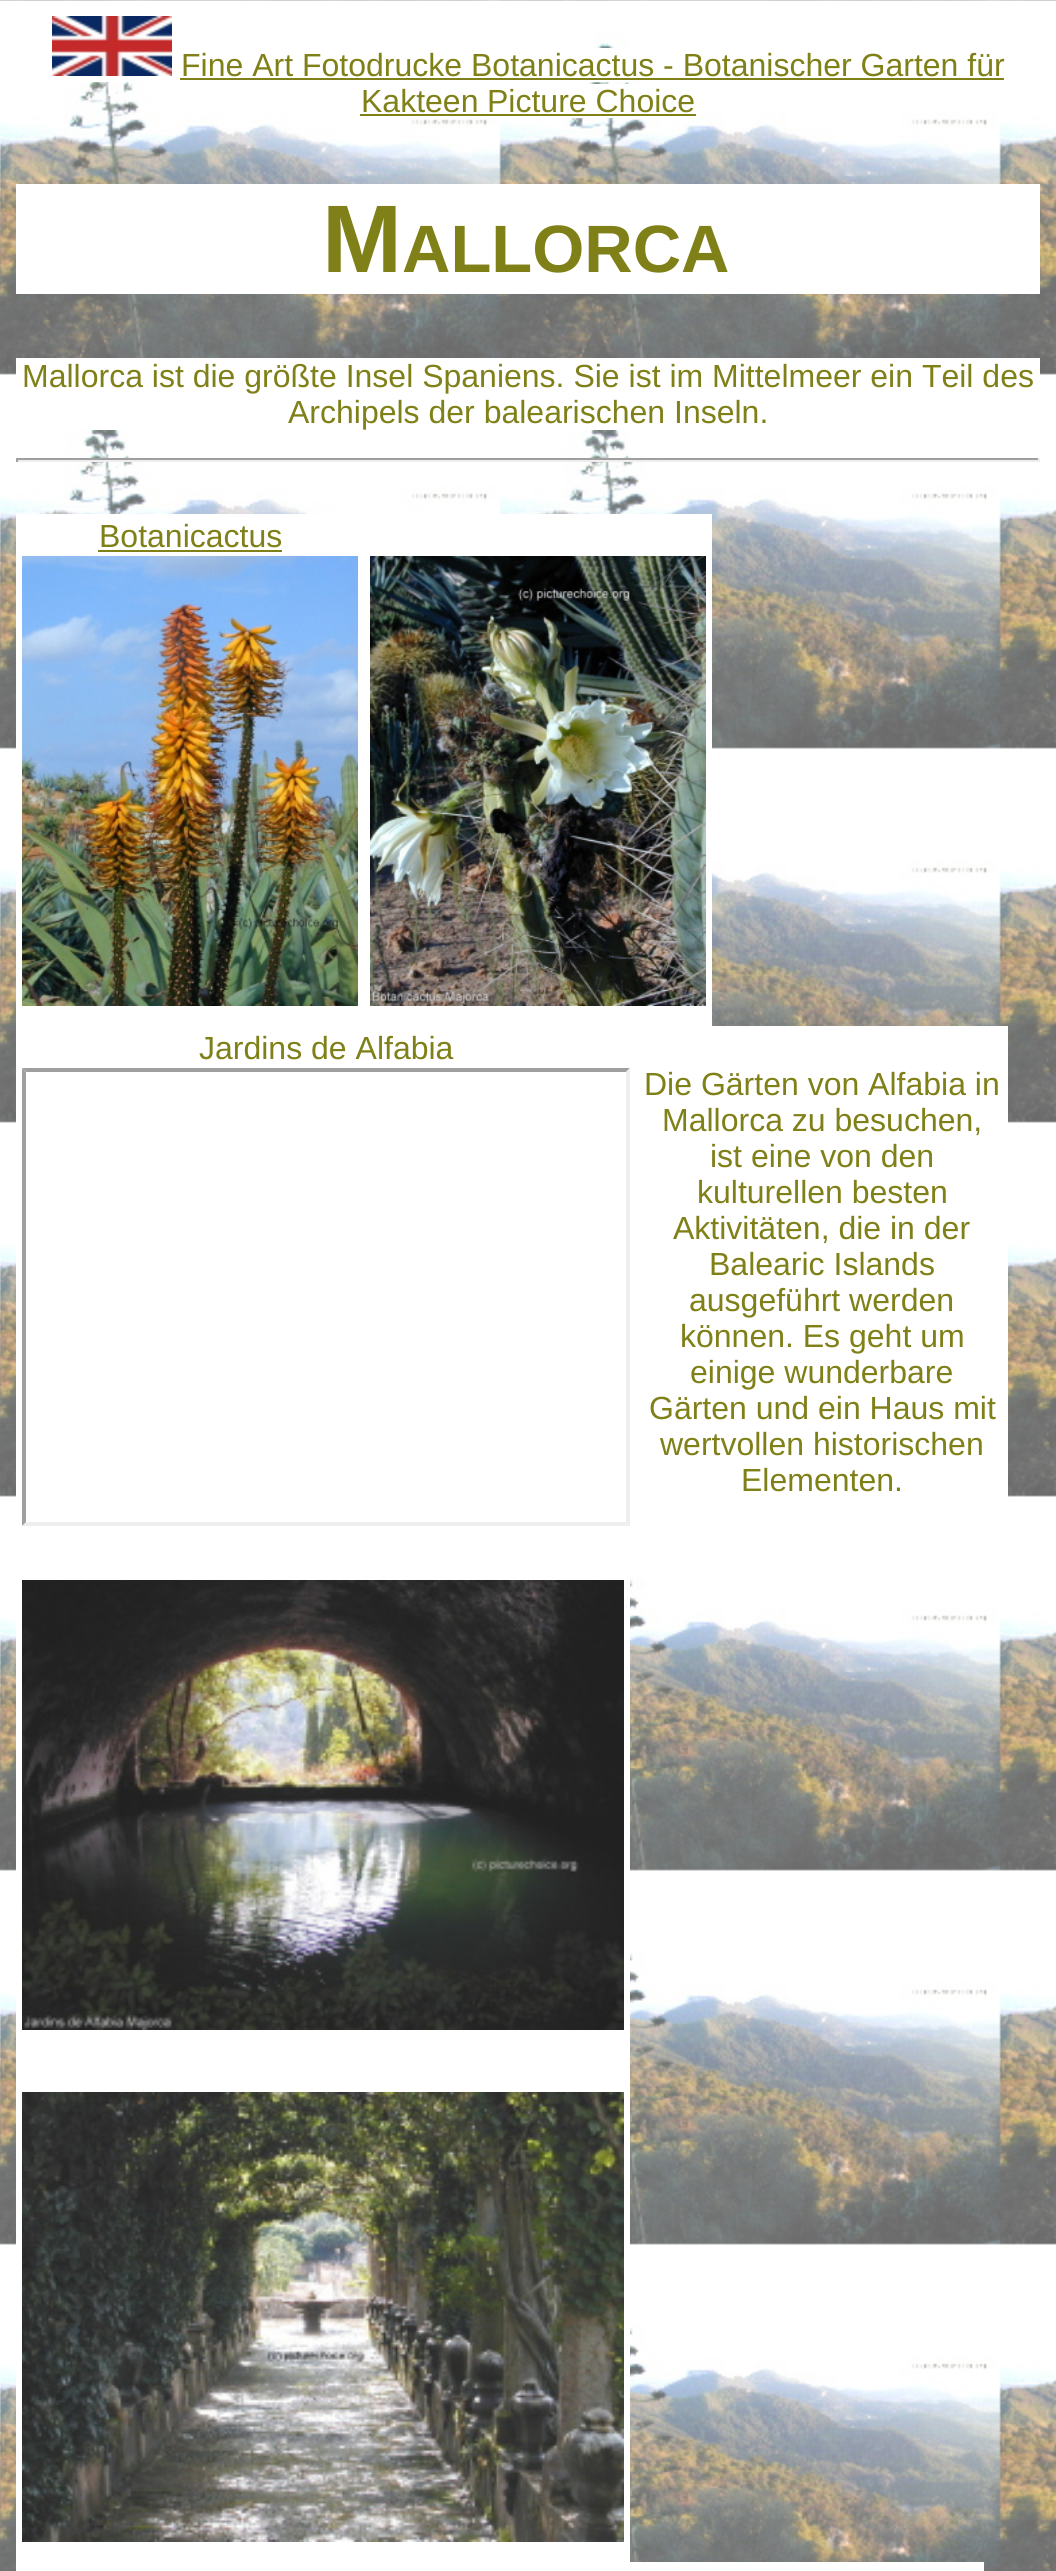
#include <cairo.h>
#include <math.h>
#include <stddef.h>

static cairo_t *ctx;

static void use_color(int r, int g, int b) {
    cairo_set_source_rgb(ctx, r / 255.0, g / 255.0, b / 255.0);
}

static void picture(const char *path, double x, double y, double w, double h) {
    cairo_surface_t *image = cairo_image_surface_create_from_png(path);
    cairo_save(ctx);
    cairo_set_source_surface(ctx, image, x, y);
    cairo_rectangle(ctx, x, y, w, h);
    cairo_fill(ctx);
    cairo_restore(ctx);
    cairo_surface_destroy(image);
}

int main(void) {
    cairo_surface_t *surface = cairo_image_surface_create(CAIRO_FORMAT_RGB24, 1056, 2571);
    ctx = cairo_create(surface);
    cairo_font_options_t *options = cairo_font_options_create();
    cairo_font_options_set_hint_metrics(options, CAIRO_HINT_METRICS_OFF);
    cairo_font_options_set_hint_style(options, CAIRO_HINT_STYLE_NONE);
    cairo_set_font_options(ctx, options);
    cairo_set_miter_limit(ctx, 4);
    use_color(255, 255, 255);
    cairo_paint(ctx);
    picture("img1.png", 0, 0, 1056, 2571);
    picture("img2.png", 52, 16, 120, 60);
    cairo_select_font_face(ctx, "Liberation Sans", CAIRO_FONT_SLANT_NORMAL, CAIRO_FONT_WEIGHT_NORMAL);
    cairo_set_font_size(ctx, 32);
    use_color(128, 128, 25);
    cairo_move_to(ctx, 181, 76);
    cairo_show_text(ctx, "Fine Art Fotodrucke");
    cairo_rectangle(ctx, 180, 78, 290, 2);
    cairo_fill(ctx);
    use_color(255, 255, 255);
    cairo_rectangle(ctx, 565, 48, 64, 34);
    cairo_fill(ctx);
    use_color(128, 128, 25);
    cairo_move_to(ctx, 471, 76);
    cairo_show_text(ctx, "Botanicactus - Botanischer Garten für");
    cairo_rectangle(ctx, 470, 78, 534, 2);
    cairo_fill(ctx);
    use_color(255, 255, 255);
    cairo_rectangle(ctx, 71, 76, 58, 6);
    cairo_fill(ctx);
    use_color(128, 128, 25);
    cairo_move_to(ctx, 361, 112);
    cairo_show_text(ctx, "Kakteen");
    cairo_rectangle(ctx, 360, 114, 128, 2);
    cairo_fill(ctx);
    use_color(255, 255, 255);
    cairo_rectangle(ctx, 565, 84, 113, 34);
    cairo_fill(ctx);
    use_color(128, 128, 25);
    cairo_move_to(ctx, 487, 112);
    cairo_show_text(ctx, "Picture Choice");
    cairo_rectangle(ctx, 488, 114, 208, 2);
    cairo_fill(ctx);
    use_color(255, 255, 255);
    cairo_rectangle(ctx, 16, 184, 1024, 110);
    cairo_fill(ctx);
    cairo_select_font_face(ctx, "Liberation Sans", CAIRO_FONT_SLANT_NORMAL, CAIRO_FONT_WEIGHT_BOLD);
    cairo_set_font_size(ctx, 96);
    use_color(128, 128, 25);
    cairo_move_to(ctx, 322, 272);
    cairo_show_text(ctx, "M");
    cairo_set_font_size(ctx, 67);
    cairo_move_to(ctx, 402, 272);
    cairo_show_text(ctx, "ALLORCA");
    use_color(255, 255, 255);
    cairo_rectangle(ctx, 16, 358, 1024, 72);
    cairo_fill(ctx);
    cairo_select_font_face(ctx, "Liberation Sans", CAIRO_FONT_SLANT_NORMAL, CAIRO_FONT_WEIGHT_NORMAL);
    cairo_set_font_size(ctx, 32);
    use_color(128, 128, 25);
    cairo_move_to(ctx, 22, 387);
    cairo_show_text(ctx, "Mallorca ist die größte Insel Spaniens. Sie ist im Mittelmeer ein Teil des");
    cairo_move_to(ctx, 288, 423);
    cairo_show_text(ctx, "Archipels der balearischen Inseln.");
    use_color(159, 159, 159);
    cairo_rectangle(ctx, 16, 458, 1024, 2);
    cairo_fill(ctx);
    use_color(238, 238, 238);
    cairo_rectangle(ctx, 1038, 458, 2, 4);
    cairo_fill(ctx);
    cairo_rectangle(ctx, 16, 460, 1024, 2);
    cairo_fill(ctx);
    use_color(159, 159, 159);
    cairo_rectangle(ctx, 16, 458, 2, 4);
    cairo_fill(ctx);
    use_color(255, 255, 255);
    cairo_rectangle(ctx, 16, 514, 696, 512);
    cairo_fill(ctx);
    use_color(128, 128, 25);
    cairo_move_to(ctx, 99, 547);
    cairo_show_text(ctx, "Botanicactus");
    cairo_rectangle(ctx, 98, 550, 184, 2);
    cairo_fill(ctx);
    picture("img3.png", 22, 556, 336, 450);
    picture("img4.png", 370, 556, 336, 450);
    use_color(255, 255, 255);
    cairo_rectangle(ctx, 16, 1026, 620, 512);
    cairo_fill(ctx);
    use_color(128, 128, 25);
    cairo_move_to(ctx, 199, 1059);
    cairo_show_text(ctx, "Jardins de Alfabia");
    use_color(159, 159, 159);
    cairo_new_path(ctx);
    cairo_move_to(ctx, 22, 1068);
    cairo_line_to(ctx, 630, 1068);
    cairo_line_to(ctx, 626, 1072);
    cairo_line_to(ctx, 26, 1072);
    cairo_close_path(ctx);
    cairo_fill(ctx);
    use_color(238, 238, 238);
    cairo_new_path(ctx);
    cairo_move_to(ctx, 630, 1068);
    cairo_line_to(ctx, 630, 1526);
    cairo_line_to(ctx, 626, 1522);
    cairo_line_to(ctx, 626, 1072);
    cairo_close_path(ctx);
    cairo_fill(ctx);
    cairo_new_path(ctx);
    cairo_move_to(ctx, 630, 1526);
    cairo_line_to(ctx, 22, 1526);
    cairo_line_to(ctx, 26, 1522);
    cairo_line_to(ctx, 626, 1522);
    cairo_close_path(ctx);
    cairo_fill(ctx);
    use_color(159, 159, 159);
    cairo_new_path(ctx);
    cairo_move_to(ctx, 22, 1526);
    cairo_line_to(ctx, 22, 1068);
    cairo_line_to(ctx, 26, 1072);
    cairo_line_to(ctx, 26, 1522);
    cairo_close_path(ctx);
    cairo_fill(ctx);
    use_color(255, 255, 255);
    cairo_rectangle(ctx, 636, 1026, 372, 471);
    cairo_fill(ctx);
    use_color(128, 128, 25);
    cairo_move_to(ctx, 644, 1095);
    cairo_show_text(ctx, "Die Gärten von Alfabia in");
    cairo_move_to(ctx, 662, 1131);
    cairo_show_text(ctx, "Mallorca zu besuchen,");
    cairo_move_to(ctx, 710, 1167);
    cairo_show_text(ctx, "ist eine von den");
    cairo_move_to(ctx, 697, 1203);
    cairo_show_text(ctx, "kulturellen besten");
    cairo_move_to(ctx, 673, 1239);
    cairo_show_text(ctx, "Aktivitäten, die in der");
    cairo_move_to(ctx, 709, 1275);
    cairo_show_text(ctx, "Balearic Islands");
    cairo_move_to(ctx, 689, 1311);
    cairo_show_text(ctx, "ausgeführt werden");
    cairo_move_to(ctx, 680, 1347);
    cairo_show_text(ctx, "können. Es geht um");
    cairo_move_to(ctx, 690, 1383);
    cairo_show_text(ctx, "einige wunderbare");
    cairo_move_to(ctx, 649, 1419);
    cairo_show_text(ctx, "Gärten und ein Haus mit");
    cairo_move_to(ctx, 660, 1455);
    cairo_show_text(ctx, "wertvollen historischen");
    cairo_move_to(ctx, 741, 1491);
    cairo_show_text(ctx, "Elementen.");
    use_color(255, 255, 255);
    cairo_rectangle(ctx, 16, 1539, 614, 1023);
    cairo_fill(ctx);
    picture("img5.png", 22, 1580, 602, 450);
    picture("img6.png", 22, 2092, 602, 450);
    cairo_rectangle(ctx, 16, 2562, 968, 9);
    cairo_fill(ctx);
    cairo_surface_write_to_png(surface, "result.png");
    cairo_font_options_destroy(options);
    cairo_destroy(ctx);
    cairo_surface_destroy(surface);
    return 0;
}
